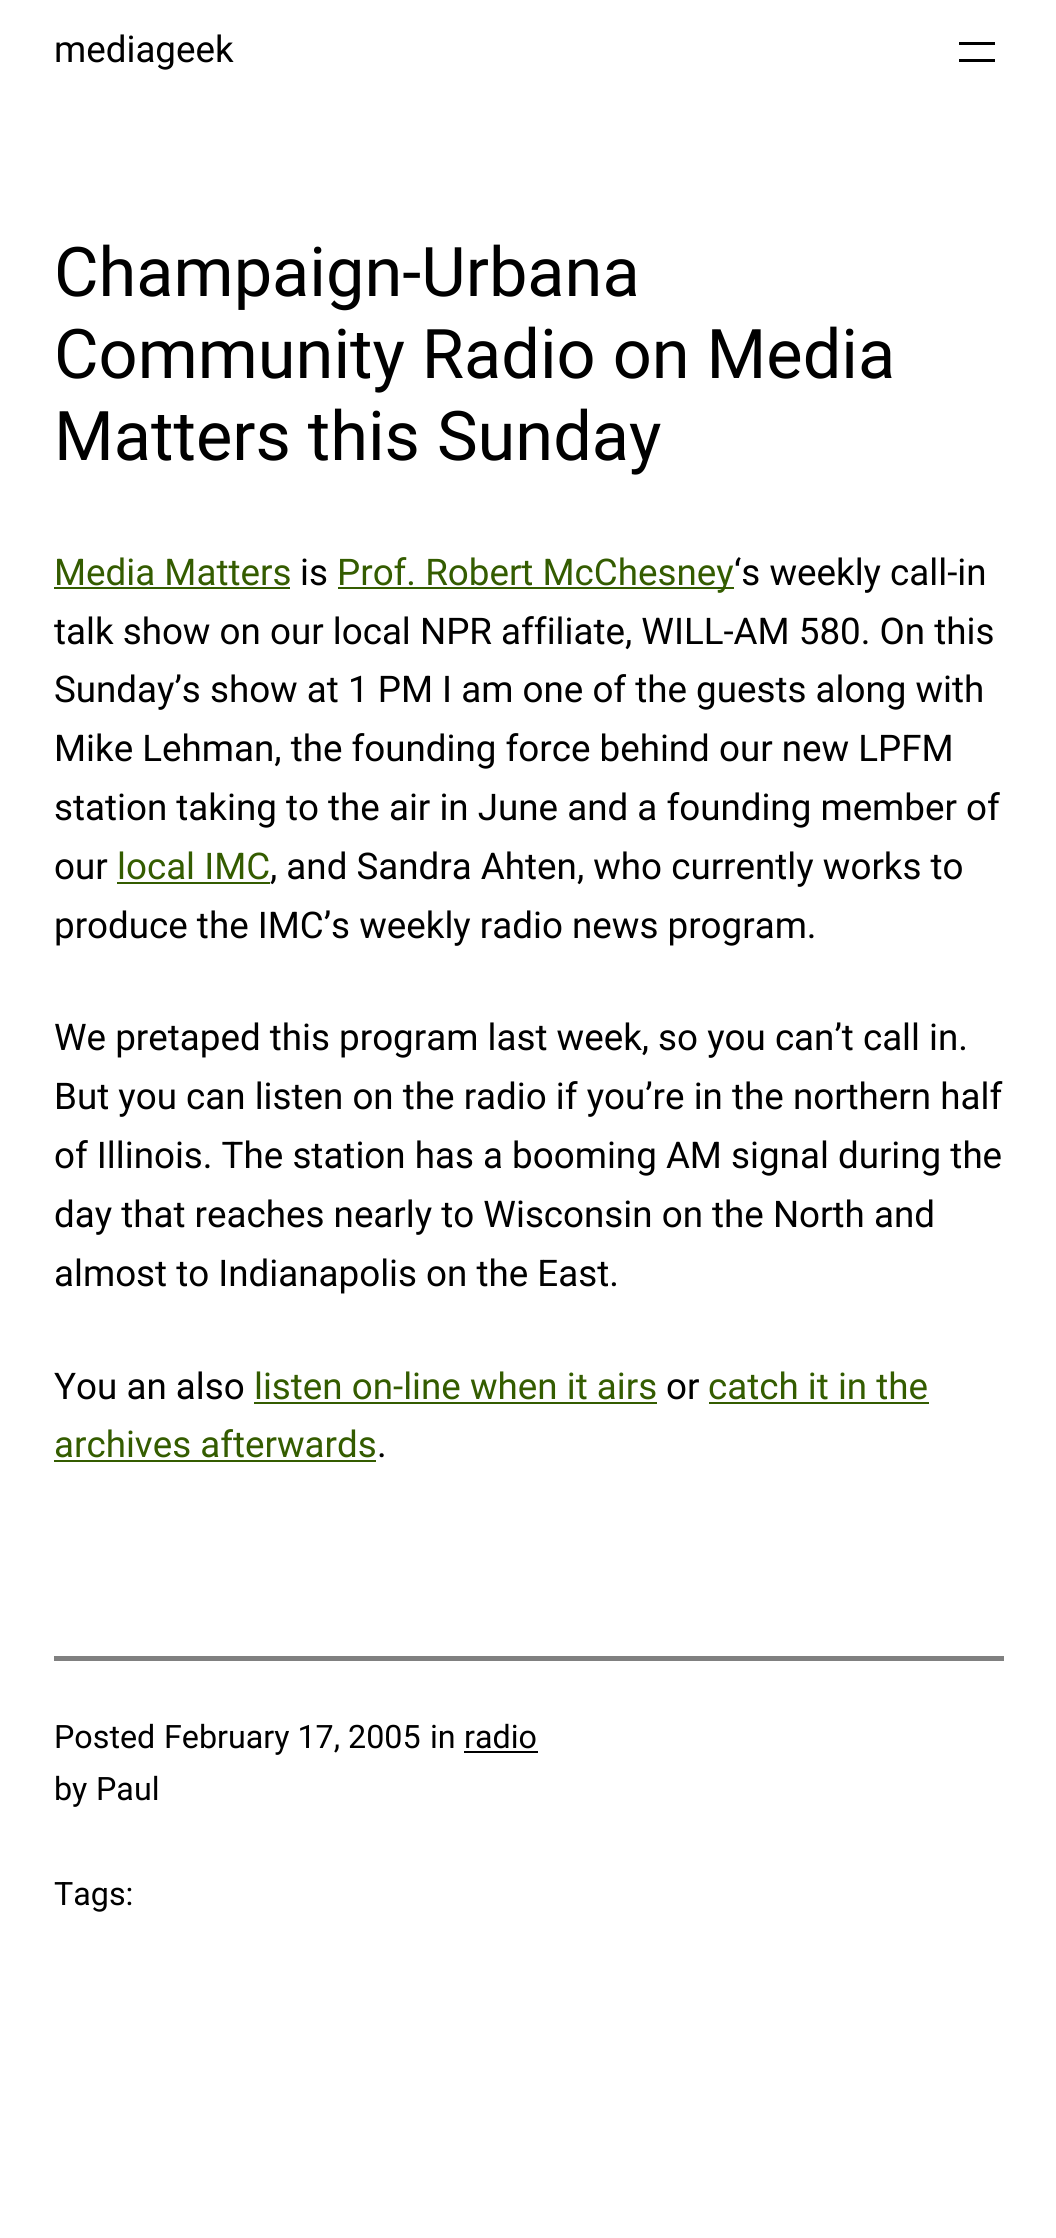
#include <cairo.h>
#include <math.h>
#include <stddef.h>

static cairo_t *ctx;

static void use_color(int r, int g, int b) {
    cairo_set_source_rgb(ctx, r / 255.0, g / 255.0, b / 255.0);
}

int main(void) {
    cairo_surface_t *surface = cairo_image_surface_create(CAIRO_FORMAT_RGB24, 1056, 2238);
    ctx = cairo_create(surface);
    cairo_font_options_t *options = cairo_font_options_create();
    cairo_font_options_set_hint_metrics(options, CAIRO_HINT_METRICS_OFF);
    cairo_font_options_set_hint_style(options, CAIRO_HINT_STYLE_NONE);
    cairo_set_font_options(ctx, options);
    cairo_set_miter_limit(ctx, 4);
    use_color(255, 255, 255);
    cairo_paint(ctx);
    cairo_select_font_face(ctx, "Roboto", CAIRO_FONT_SLANT_NORMAL, CAIRO_FONT_WEIGHT_NORMAL);
    cairo_set_font_size(ctx, 36.75);
    use_color(0, 0, 0);
    cairo_move_to(ctx, 54, 62);
    cairo_show_text(ctx, "mediageek");
    cairo_rectangle(ctx, 959, 42, 36, 3);
    cairo_fill(ctx);
    cairo_rectangle(ctx, 959, 59, 36, 3);
    cairo_fill(ctx);
    cairo_set_font_size(ctx, 68.5);
    cairo_move_to(ctx, 54, 296);
    cairo_show_text(ctx, "Champaign-Urbana");
    cairo_move_to(ctx, 54, 378);
    cairo_show_text(ctx, "Community Radio on Media");
    cairo_move_to(ctx, 54, 460);
    cairo_show_text(ctx, "Matters this Sunday");
    cairo_set_font_size(ctx, 36.75);
    use_color(52, 92, 0);
    cairo_move_to(ctx, 54, 585);
    cairo_show_text(ctx, "Media Matters");
    cairo_rectangle(ctx, 54, 587, 236, 2);
    cairo_fill(ctx);
    use_color(0, 0, 0);
    cairo_move_to(ctx, 300, 585);
    cairo_show_text(ctx, "is");
    use_color(52, 92, 0);
    cairo_rectangle(ctx, 338, 587, 396, 2);
    cairo_fill(ctx);
    cairo_move_to(ctx, 337, 585);
    cairo_show_text(ctx, "Prof. Robert McChesney");
    use_color(0, 0, 0);
    cairo_move_to(ctx, 734, 585);
    cairo_show_text(ctx, "‘s weekly call-in");
    cairo_move_to(ctx, 54, 644);
    cairo_show_text(ctx, "talk show on our local NPR affiliate, WILL-AM 580. On this");
    cairo_move_to(ctx, 54, 702);
    cairo_show_text(ctx, "Sunday’s show at 1 PM I am one of the guests along with");
    cairo_move_to(ctx, 54, 761);
    cairo_show_text(ctx, "Mike Lehman, the founding force behind our new LPFM");
    cairo_move_to(ctx, 54, 820);
    cairo_show_text(ctx, "station taking to the air in June and a founding member of");
    cairo_move_to(ctx, 54, 879);
    cairo_show_text(ctx, "our");
    use_color(52, 92, 0);
    cairo_move_to(ctx, 117, 879);
    cairo_show_text(ctx, "local IMC");
    cairo_rectangle(ctx, 117, 882, 153, 2);
    cairo_fill(ctx);
    use_color(0, 0, 0);
    cairo_move_to(ctx, 270, 879);
    cairo_show_text(ctx, ", and Sandra Ahten, who currently works to");
    cairo_move_to(ctx, 54, 938);
    cairo_show_text(ctx, "produce the IMC’s weekly radio news program.");
    cairo_move_to(ctx, 54, 1050);
    cairo_show_text(ctx, "We pretaped this program last week, so you can’t call in.");
    cairo_move_to(ctx, 54, 1109);
    cairo_show_text(ctx, "But you can listen on the radio if you’re in the northern half");
    cairo_move_to(ctx, 54, 1168);
    cairo_show_text(ctx, "of Illinois. The station has a booming AM signal during the");
    cairo_move_to(ctx, 54, 1227);
    cairo_show_text(ctx, "day that reaches nearly to Wisconsin on the North and");
    cairo_move_to(ctx, 54, 1286);
    cairo_show_text(ctx, "almost to Indianapolis on the East.");
    cairo_move_to(ctx, 54, 1399);
    cairo_show_text(ctx, "You an also");
    use_color(52, 92, 0);
    cairo_move_to(ctx, 254, 1399);
    cairo_show_text(ctx, "listen on-line when it airs");
    cairo_rectangle(ctx, 254, 1402, 403, 2);
    cairo_fill(ctx);
    use_color(0, 0, 0);
    cairo_move_to(ctx, 666, 1399);
    cairo_show_text(ctx, "or");
    use_color(52, 92, 0);
    cairo_move_to(ctx, 708, 1399);
    cairo_show_text(ctx, "catch it in the");
    cairo_rectangle(ctx, 709, 1402, 220, 2);
    cairo_fill(ctx);
    cairo_move_to(ctx, 54, 1457);
    cairo_show_text(ctx, "archives afterwards");
    cairo_rectangle(ctx, 54, 1460, 322, 2);
    cairo_fill(ctx);
    use_color(0, 0, 0);
    cairo_move_to(ctx, 377, 1457);
    cairo_show_text(ctx, ".");
    use_color(128, 128, 128);
    cairo_rectangle(ctx, 54, 1656, 950, 5);
    cairo_fill(ctx);
    cairo_set_font_size(ctx, 32.25);
    use_color(0, 0, 0);
    cairo_move_to(ctx, 54, 1748);
    cairo_show_text(ctx, "Posted");
    cairo_move_to(ctx, 164, 1748);
    cairo_show_text(ctx, "February 17, 2005");
    cairo_move_to(ctx, 430, 1748);
    cairo_show_text(ctx, "in");
    cairo_move_to(ctx, 464, 1748);
    cairo_show_text(ctx, "radio");
    cairo_rectangle(ctx, 464, 1751, 74, 2);
    cairo_fill(ctx);
    cairo_move_to(ctx, 54, 1800);
    cairo_show_text(ctx, "by");
    cairo_move_to(ctx, 96, 1800);
    cairo_show_text(ctx, "Paul");
    cairo_move_to(ctx, 54, 1905);
    cairo_show_text(ctx, "Tags:");
    cairo_surface_write_to_png(surface, "result.png");
    cairo_font_options_destroy(options);
    cairo_destroy(ctx);
    cairo_surface_destroy(surface);
    return 0;
}
